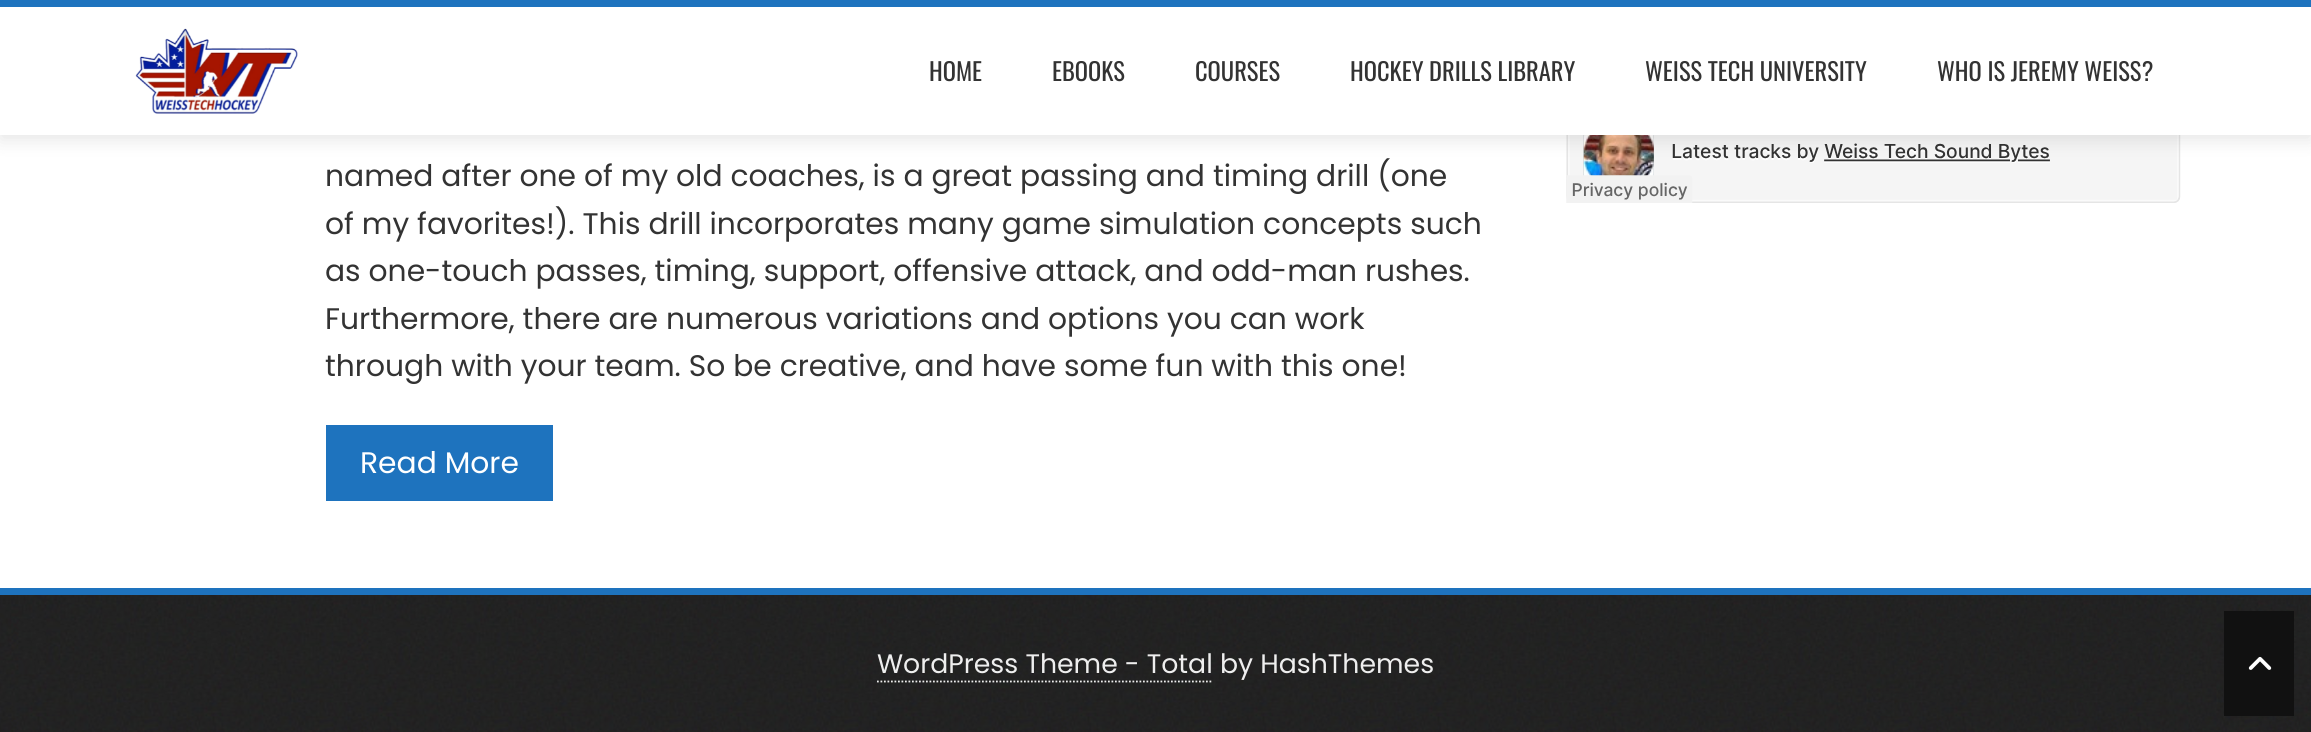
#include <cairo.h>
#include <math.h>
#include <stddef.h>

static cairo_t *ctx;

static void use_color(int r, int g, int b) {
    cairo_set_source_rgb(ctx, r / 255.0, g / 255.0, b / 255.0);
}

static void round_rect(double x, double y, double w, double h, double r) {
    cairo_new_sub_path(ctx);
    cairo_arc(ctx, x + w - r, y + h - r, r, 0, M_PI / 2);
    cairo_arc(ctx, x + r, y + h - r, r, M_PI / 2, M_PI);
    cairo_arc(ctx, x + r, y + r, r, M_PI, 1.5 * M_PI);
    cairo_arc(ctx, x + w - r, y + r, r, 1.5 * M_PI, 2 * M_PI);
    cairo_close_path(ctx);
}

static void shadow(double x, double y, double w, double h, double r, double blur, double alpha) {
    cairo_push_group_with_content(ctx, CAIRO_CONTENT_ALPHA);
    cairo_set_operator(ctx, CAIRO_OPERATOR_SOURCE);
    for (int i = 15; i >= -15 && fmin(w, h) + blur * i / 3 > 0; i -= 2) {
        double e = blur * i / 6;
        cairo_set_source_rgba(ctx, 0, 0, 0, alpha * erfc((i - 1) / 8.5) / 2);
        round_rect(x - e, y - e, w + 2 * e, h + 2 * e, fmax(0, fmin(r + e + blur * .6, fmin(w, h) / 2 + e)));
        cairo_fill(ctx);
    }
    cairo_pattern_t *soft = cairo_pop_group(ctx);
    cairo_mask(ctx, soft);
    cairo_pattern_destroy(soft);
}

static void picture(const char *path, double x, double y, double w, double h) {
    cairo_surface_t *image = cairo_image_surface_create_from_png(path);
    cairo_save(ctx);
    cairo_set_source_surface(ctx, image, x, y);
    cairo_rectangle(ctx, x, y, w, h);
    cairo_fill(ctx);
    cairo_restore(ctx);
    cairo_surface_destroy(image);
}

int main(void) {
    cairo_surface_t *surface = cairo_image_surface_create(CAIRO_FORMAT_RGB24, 2311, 732);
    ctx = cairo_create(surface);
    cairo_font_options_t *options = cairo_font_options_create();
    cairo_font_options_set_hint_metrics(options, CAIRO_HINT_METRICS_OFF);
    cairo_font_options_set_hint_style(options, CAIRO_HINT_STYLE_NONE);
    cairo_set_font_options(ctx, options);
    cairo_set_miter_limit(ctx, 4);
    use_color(255, 255, 255);
    cairo_paint(ctx);
    picture("img2.png", 1566, 135, 615, 68);
    use_color(0, 0, 0);
    shadow(0, 5, 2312, 135, 0, 9, 0.1);
    use_color(255, 255, 255);
    cairo_rectangle(ctx, 0, 7, 2311, 128);
    cairo_fill(ctx);
    use_color(30, 115, 190);
    cairo_rectangle(ctx, 0, 0, 2311, 7);
    cairo_fill(ctx);
    picture("img1.png", 135, 28, 163, 86);
    cairo_select_font_face(ctx, "Oswald", CAIRO_FONT_SLANT_NORMAL, CAIRO_FONT_WEIGHT_NORMAL);
    cairo_set_font_size(ctx, 24.5);
    use_color(51, 51, 51);
    cairo_move_to(ctx, 929, 81);
    cairo_show_text(ctx, "HOME");
    cairo_move_to(ctx, 1052, 81);
    cairo_show_text(ctx, "EBOOKS");
    cairo_move_to(ctx, 1195, 81);
    cairo_show_text(ctx, "COURSES");
    cairo_move_to(ctx, 1350, 81);
    cairo_show_text(ctx, "HOCKEY DRILLS LIBRARY");
    cairo_move_to(ctx, 1645, 81);
    cairo_show_text(ctx, "WEISS TECH UNIVERSITY");
    cairo_move_to(ctx, 1937, 81);
    cairo_show_text(ctx, "WHO IS JEREMY WEISS?");
    cairo_select_font_face(ctx, "Poppins", CAIRO_FONT_SLANT_NORMAL, CAIRO_FONT_WEIGHT_NORMAL);
    cairo_set_font_size(ctx, 29.75);
    cairo_move_to(ctx, 325, 186);
    cairo_show_text(ctx, "named after one of my old coaches, is a great passing and timing drill (one");
    cairo_move_to(ctx, 325, 234);
    cairo_show_text(ctx, "of my favorites!). This drill incorporates many game simulation concepts such");
    cairo_move_to(ctx, 325, 281);
    cairo_show_text(ctx, "as one-touch passes, timing, support, offensive attack, and odd-man rushes.");
    cairo_move_to(ctx, 325, 329);
    cairo_show_text(ctx, "Furthermore, there are numerous variations and options you can work");
    cairo_move_to(ctx, 325, 376);
    cairo_show_text(ctx, "through with your team. So be creative, and have some fun with this one!");
    use_color(30, 115, 190);
    cairo_rectangle(ctx, 326, 425, 227, 76);
    cairo_fill(ctx);
    use_color(255, 255, 255);
    cairo_move_to(ctx, 360, 473);
    cairo_show_text(ctx, "Read More");
    picture("img3.png", 0, 595, 2311, 137);
    use_color(30, 115, 190);
    cairo_rectangle(ctx, 0, 588, 2311, 7);
    cairo_fill(ctx);
    cairo_set_font_size(ctx, 26.75);
    use_color(238, 238, 238);
    cairo_move_to(ctx, 877, 673);
    cairo_show_text(ctx, "WordPress Theme - Total by HashThemes");
    cairo_new_path(ctx);
    cairo_move_to(ctx, 877, 681.5);
    cairo_line_to(ctx, 1213, 681.5);
    cairo_set_line_width(ctx, 1.8);
    cairo_set_dash(ctx, (double[]){1.75, 1.75}, 2, 0);
    cairo_stroke(ctx);
    use_color(17, 17, 17);
    cairo_rectangle(ctx, 2224, 611, 70, 105);
    cairo_fill(ctx);
    picture("img4.png", 2248, 656, 24, 14);
    cairo_surface_write_to_png(surface, "result.png");
    cairo_font_options_destroy(options);
    cairo_destroy(ctx);
    cairo_surface_destroy(surface);
    return 0;
}
